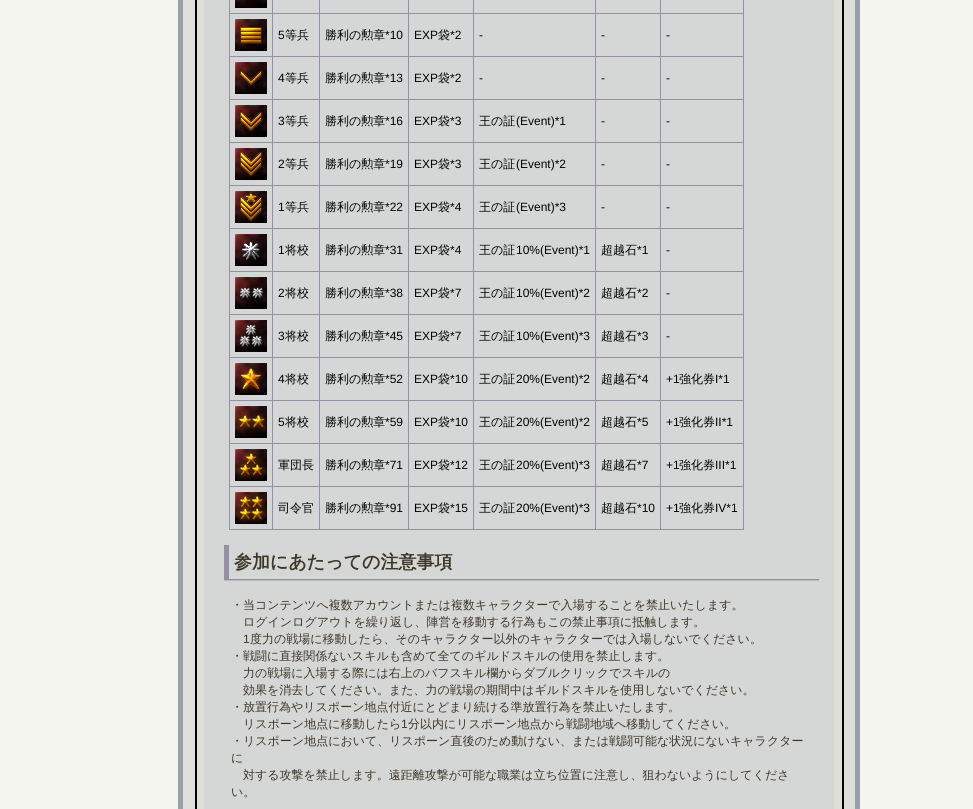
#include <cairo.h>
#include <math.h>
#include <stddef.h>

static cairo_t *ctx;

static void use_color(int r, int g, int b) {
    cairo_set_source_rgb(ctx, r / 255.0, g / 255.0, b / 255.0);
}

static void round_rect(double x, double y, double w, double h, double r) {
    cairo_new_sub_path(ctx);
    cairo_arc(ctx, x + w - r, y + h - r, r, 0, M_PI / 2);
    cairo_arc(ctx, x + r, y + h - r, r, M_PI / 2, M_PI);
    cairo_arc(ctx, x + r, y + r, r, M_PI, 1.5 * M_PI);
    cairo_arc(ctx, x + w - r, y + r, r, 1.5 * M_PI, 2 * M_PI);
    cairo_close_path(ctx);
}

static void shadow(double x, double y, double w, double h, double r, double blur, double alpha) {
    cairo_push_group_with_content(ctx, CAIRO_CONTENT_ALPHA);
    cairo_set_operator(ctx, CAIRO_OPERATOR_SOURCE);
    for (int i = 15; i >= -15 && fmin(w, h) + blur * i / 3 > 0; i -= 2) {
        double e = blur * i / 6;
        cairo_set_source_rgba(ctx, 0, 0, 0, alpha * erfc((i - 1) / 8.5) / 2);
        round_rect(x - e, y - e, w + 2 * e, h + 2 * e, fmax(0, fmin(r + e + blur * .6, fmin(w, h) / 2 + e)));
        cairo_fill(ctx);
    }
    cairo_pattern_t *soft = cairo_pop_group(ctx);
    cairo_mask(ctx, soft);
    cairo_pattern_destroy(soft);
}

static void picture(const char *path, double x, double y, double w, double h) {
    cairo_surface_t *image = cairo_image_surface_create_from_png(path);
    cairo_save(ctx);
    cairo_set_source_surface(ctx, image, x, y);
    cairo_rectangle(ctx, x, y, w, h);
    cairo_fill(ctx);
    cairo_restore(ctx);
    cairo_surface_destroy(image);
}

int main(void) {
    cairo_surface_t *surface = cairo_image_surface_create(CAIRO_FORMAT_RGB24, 973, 809);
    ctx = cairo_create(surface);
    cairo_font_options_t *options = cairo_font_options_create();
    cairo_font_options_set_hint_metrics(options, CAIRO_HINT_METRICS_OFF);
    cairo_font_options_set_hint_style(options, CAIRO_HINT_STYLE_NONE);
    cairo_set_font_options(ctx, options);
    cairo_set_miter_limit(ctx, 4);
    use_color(245, 245, 239);
    cairo_paint(ctx);
    use_color(154, 160, 169);
    cairo_rectangle(ctx, 178, 0, 5, 809);
    cairo_fill(ctx);
    use_color(223, 223, 218);
    cairo_rectangle(ctx, 183, 0, 672, 809);
    cairo_fill(ctx);
    use_color(0, 0, 0);
    cairo_rectangle(ctx, 195, 0, 2, 809);
    cairo_fill(ctx);
    use_color(213, 214, 214);
    cairo_rectangle(ctx, 204, 0, 630, 809);
    cairo_fill(ctx);
    use_color(151, 144, 164);
    cairo_rectangle(ctx, 743, 0, 1, 530);
    cairo_fill(ctx);
    cairo_rectangle(ctx, 229, 529, 515, 1);
    cairo_fill(ctx);
    cairo_rectangle(ctx, 229, 0, 1, 530);
    cairo_fill(ctx);
    picture("img1.png", 235, 0, 32, 8);
    cairo_rectangle(ctx, 660, 13, 84, 1);
    cairo_fill(ctx);
    cairo_rectangle(ctx, 660, 56, 84, 1);
    cairo_fill(ctx);
    cairo_rectangle(ctx, 660, 99, 84, 1);
    cairo_fill(ctx);
    cairo_rectangle(ctx, 660, 142, 84, 1);
    cairo_fill(ctx);
    cairo_rectangle(ctx, 660, 185, 84, 1);
    cairo_fill(ctx);
    cairo_rectangle(ctx, 660, 228, 84, 1);
    cairo_fill(ctx);
    cairo_rectangle(ctx, 660, 271, 84, 1);
    cairo_fill(ctx);
    cairo_rectangle(ctx, 660, 314, 84, 1);
    cairo_fill(ctx);
    cairo_rectangle(ctx, 660, 357, 84, 1);
    cairo_fill(ctx);
    cairo_rectangle(ctx, 660, 400, 84, 1);
    cairo_fill(ctx);
    cairo_rectangle(ctx, 660, 443, 84, 1);
    cairo_fill(ctx);
    cairo_rectangle(ctx, 660, 486, 84, 1);
    cairo_fill(ctx);
    cairo_rectangle(ctx, 660, 486, 1, 44);
    cairo_fill(ctx);
    cairo_rectangle(ctx, 595, 486, 66, 1);
    cairo_fill(ctx);
    cairo_rectangle(ctx, 660, 443, 1, 44);
    cairo_fill(ctx);
    cairo_rectangle(ctx, 595, 443, 66, 1);
    cairo_fill(ctx);
    cairo_rectangle(ctx, 660, 400, 1, 44);
    cairo_fill(ctx);
    cairo_rectangle(ctx, 595, 400, 66, 1);
    cairo_fill(ctx);
    cairo_rectangle(ctx, 660, 357, 1, 44);
    cairo_fill(ctx);
    cairo_rectangle(ctx, 595, 357, 66, 1);
    cairo_fill(ctx);
    cairo_rectangle(ctx, 660, 314, 1, 44);
    cairo_fill(ctx);
    cairo_rectangle(ctx, 595, 314, 66, 1);
    cairo_fill(ctx);
    cairo_rectangle(ctx, 660, 271, 1, 44);
    cairo_fill(ctx);
    cairo_rectangle(ctx, 595, 271, 66, 1);
    cairo_fill(ctx);
    cairo_rectangle(ctx, 660, 228, 1, 44);
    cairo_fill(ctx);
    cairo_rectangle(ctx, 595, 228, 66, 1);
    cairo_fill(ctx);
    cairo_rectangle(ctx, 660, 185, 1, 44);
    cairo_fill(ctx);
    cairo_rectangle(ctx, 595, 185, 66, 1);
    cairo_fill(ctx);
    cairo_rectangle(ctx, 660, 142, 1, 44);
    cairo_fill(ctx);
    cairo_rectangle(ctx, 595, 142, 66, 1);
    cairo_fill(ctx);
    cairo_rectangle(ctx, 660, 99, 1, 44);
    cairo_fill(ctx);
    cairo_rectangle(ctx, 595, 99, 66, 1);
    cairo_fill(ctx);
    cairo_rectangle(ctx, 660, 56, 1, 44);
    cairo_fill(ctx);
    cairo_rectangle(ctx, 595, 56, 66, 1);
    cairo_fill(ctx);
    cairo_rectangle(ctx, 660, 13, 1, 44);
    cairo_fill(ctx);
    cairo_rectangle(ctx, 595, 13, 66, 1);
    cairo_fill(ctx);
    cairo_rectangle(ctx, 595, 486, 1, 44);
    cairo_fill(ctx);
    cairo_rectangle(ctx, 473, 486, 123, 1);
    cairo_fill(ctx);
    cairo_rectangle(ctx, 595, 443, 1, 44);
    cairo_fill(ctx);
    cairo_rectangle(ctx, 473, 443, 123, 1);
    cairo_fill(ctx);
    cairo_rectangle(ctx, 595, 400, 1, 44);
    cairo_fill(ctx);
    cairo_rectangle(ctx, 473, 400, 123, 1);
    cairo_fill(ctx);
    cairo_rectangle(ctx, 595, 357, 1, 44);
    cairo_fill(ctx);
    cairo_rectangle(ctx, 473, 357, 123, 1);
    cairo_fill(ctx);
    cairo_rectangle(ctx, 595, 314, 1, 44);
    cairo_fill(ctx);
    cairo_rectangle(ctx, 473, 314, 123, 1);
    cairo_fill(ctx);
    cairo_rectangle(ctx, 595, 271, 1, 44);
    cairo_fill(ctx);
    cairo_rectangle(ctx, 473, 271, 123, 1);
    cairo_fill(ctx);
    cairo_rectangle(ctx, 595, 228, 1, 44);
    cairo_fill(ctx);
    cairo_rectangle(ctx, 473, 228, 123, 1);
    cairo_fill(ctx);
    cairo_rectangle(ctx, 595, 185, 1, 44);
    cairo_fill(ctx);
    cairo_rectangle(ctx, 473, 185, 123, 1);
    cairo_fill(ctx);
    cairo_rectangle(ctx, 595, 142, 1, 44);
    cairo_fill(ctx);
    cairo_rectangle(ctx, 473, 142, 123, 1);
    cairo_fill(ctx);
    cairo_rectangle(ctx, 595, 99, 1, 44);
    cairo_fill(ctx);
    cairo_rectangle(ctx, 473, 99, 123, 1);
    cairo_fill(ctx);
    cairo_rectangle(ctx, 595, 56, 1, 44);
    cairo_fill(ctx);
    cairo_rectangle(ctx, 473, 56, 123, 1);
    cairo_fill(ctx);
    cairo_rectangle(ctx, 595, 13, 1, 44);
    cairo_fill(ctx);
    cairo_rectangle(ctx, 473, 13, 123, 1);
    cairo_fill(ctx);
    cairo_rectangle(ctx, 473, 486, 1, 44);
    cairo_fill(ctx);
    cairo_rectangle(ctx, 408, 486, 66, 1);
    cairo_fill(ctx);
    cairo_rectangle(ctx, 473, 443, 1, 44);
    cairo_fill(ctx);
    cairo_rectangle(ctx, 408, 443, 66, 1);
    cairo_fill(ctx);
    cairo_rectangle(ctx, 473, 400, 1, 44);
    cairo_fill(ctx);
    cairo_rectangle(ctx, 408, 400, 66, 1);
    cairo_fill(ctx);
    cairo_rectangle(ctx, 473, 357, 1, 44);
    cairo_fill(ctx);
    cairo_rectangle(ctx, 408, 357, 66, 1);
    cairo_fill(ctx);
    cairo_rectangle(ctx, 473, 314, 1, 44);
    cairo_fill(ctx);
    cairo_rectangle(ctx, 408, 314, 66, 1);
    cairo_fill(ctx);
    cairo_rectangle(ctx, 473, 271, 1, 44);
    cairo_fill(ctx);
    cairo_rectangle(ctx, 408, 271, 66, 1);
    cairo_fill(ctx);
    cairo_rectangle(ctx, 473, 228, 1, 44);
    cairo_fill(ctx);
    cairo_rectangle(ctx, 408, 228, 66, 1);
    cairo_fill(ctx);
    cairo_rectangle(ctx, 473, 185, 1, 44);
    cairo_fill(ctx);
    cairo_rectangle(ctx, 408, 185, 66, 1);
    cairo_fill(ctx);
    cairo_rectangle(ctx, 473, 142, 1, 44);
    cairo_fill(ctx);
    cairo_rectangle(ctx, 408, 142, 66, 1);
    cairo_fill(ctx);
    cairo_rectangle(ctx, 473, 99, 1, 44);
    cairo_fill(ctx);
    cairo_rectangle(ctx, 408, 99, 66, 1);
    cairo_fill(ctx);
    cairo_rectangle(ctx, 473, 56, 1, 44);
    cairo_fill(ctx);
    cairo_rectangle(ctx, 408, 56, 66, 1);
    cairo_fill(ctx);
    cairo_rectangle(ctx, 473, 13, 1, 44);
    cairo_fill(ctx);
    cairo_rectangle(ctx, 408, 13, 66, 1);
    cairo_fill(ctx);
    cairo_rectangle(ctx, 408, 486, 1, 44);
    cairo_fill(ctx);
    cairo_rectangle(ctx, 319, 486, 90, 1);
    cairo_fill(ctx);
    cairo_rectangle(ctx, 408, 443, 1, 44);
    cairo_fill(ctx);
    cairo_rectangle(ctx, 319, 443, 90, 1);
    cairo_fill(ctx);
    cairo_rectangle(ctx, 408, 400, 1, 44);
    cairo_fill(ctx);
    cairo_rectangle(ctx, 319, 400, 90, 1);
    cairo_fill(ctx);
    cairo_rectangle(ctx, 408, 357, 1, 44);
    cairo_fill(ctx);
    cairo_rectangle(ctx, 319, 357, 90, 1);
    cairo_fill(ctx);
    cairo_rectangle(ctx, 408, 314, 1, 44);
    cairo_fill(ctx);
    cairo_rectangle(ctx, 319, 314, 90, 1);
    cairo_fill(ctx);
    cairo_rectangle(ctx, 408, 271, 1, 44);
    cairo_fill(ctx);
    cairo_rectangle(ctx, 319, 271, 90, 1);
    cairo_fill(ctx);
    cairo_rectangle(ctx, 408, 228, 1, 44);
    cairo_fill(ctx);
    cairo_rectangle(ctx, 319, 228, 90, 1);
    cairo_fill(ctx);
    cairo_rectangle(ctx, 408, 185, 1, 44);
    cairo_fill(ctx);
    cairo_rectangle(ctx, 319, 185, 90, 1);
    cairo_fill(ctx);
    cairo_rectangle(ctx, 408, 142, 1, 44);
    cairo_fill(ctx);
    cairo_rectangle(ctx, 319, 142, 90, 1);
    cairo_fill(ctx);
    cairo_rectangle(ctx, 408, 99, 1, 44);
    cairo_fill(ctx);
    cairo_rectangle(ctx, 319, 99, 90, 1);
    cairo_fill(ctx);
    cairo_rectangle(ctx, 408, 56, 1, 44);
    cairo_fill(ctx);
    cairo_rectangle(ctx, 319, 56, 90, 1);
    cairo_fill(ctx);
    cairo_rectangle(ctx, 408, 13, 1, 44);
    cairo_fill(ctx);
    cairo_rectangle(ctx, 319, 13, 90, 1);
    cairo_fill(ctx);
    cairo_rectangle(ctx, 319, 486, 1, 44);
    cairo_fill(ctx);
    cairo_rectangle(ctx, 272, 486, 48, 1);
    cairo_fill(ctx);
    cairo_rectangle(ctx, 319, 443, 1, 44);
    cairo_fill(ctx);
    cairo_rectangle(ctx, 272, 443, 48, 1);
    cairo_fill(ctx);
    cairo_rectangle(ctx, 319, 400, 1, 44);
    cairo_fill(ctx);
    cairo_rectangle(ctx, 272, 400, 48, 1);
    cairo_fill(ctx);
    cairo_rectangle(ctx, 319, 357, 1, 44);
    cairo_fill(ctx);
    cairo_rectangle(ctx, 272, 357, 48, 1);
    cairo_fill(ctx);
    cairo_rectangle(ctx, 319, 314, 1, 44);
    cairo_fill(ctx);
    cairo_rectangle(ctx, 272, 314, 48, 1);
    cairo_fill(ctx);
    cairo_rectangle(ctx, 319, 271, 1, 44);
    cairo_fill(ctx);
    cairo_rectangle(ctx, 272, 271, 48, 1);
    cairo_fill(ctx);
    cairo_rectangle(ctx, 319, 228, 1, 44);
    cairo_fill(ctx);
    cairo_rectangle(ctx, 272, 228, 48, 1);
    cairo_fill(ctx);
    cairo_rectangle(ctx, 319, 185, 1, 44);
    cairo_fill(ctx);
    cairo_rectangle(ctx, 272, 185, 48, 1);
    cairo_fill(ctx);
    cairo_rectangle(ctx, 319, 142, 1, 44);
    cairo_fill(ctx);
    cairo_rectangle(ctx, 272, 142, 48, 1);
    cairo_fill(ctx);
    cairo_rectangle(ctx, 319, 99, 1, 44);
    cairo_fill(ctx);
    cairo_rectangle(ctx, 272, 99, 48, 1);
    cairo_fill(ctx);
    cairo_rectangle(ctx, 319, 56, 1, 44);
    cairo_fill(ctx);
    cairo_rectangle(ctx, 272, 56, 48, 1);
    cairo_fill(ctx);
    cairo_rectangle(ctx, 319, 13, 1, 44);
    cairo_fill(ctx);
    cairo_rectangle(ctx, 272, 13, 48, 1);
    cairo_fill(ctx);
    cairo_rectangle(ctx, 272, 486, 1, 44);
    cairo_fill(ctx);
    cairo_rectangle(ctx, 229, 486, 44, 1);
    cairo_fill(ctx);
    cairo_rectangle(ctx, 272, 443, 1, 44);
    cairo_fill(ctx);
    cairo_rectangle(ctx, 229, 443, 44, 1);
    cairo_fill(ctx);
    cairo_rectangle(ctx, 272, 400, 1, 44);
    cairo_fill(ctx);
    cairo_rectangle(ctx, 229, 400, 44, 1);
    cairo_fill(ctx);
    cairo_rectangle(ctx, 272, 357, 1, 44);
    cairo_fill(ctx);
    cairo_rectangle(ctx, 229, 357, 44, 1);
    cairo_fill(ctx);
    cairo_rectangle(ctx, 272, 314, 1, 44);
    cairo_fill(ctx);
    cairo_rectangle(ctx, 229, 314, 44, 1);
    cairo_fill(ctx);
    cairo_rectangle(ctx, 272, 271, 1, 44);
    cairo_fill(ctx);
    cairo_rectangle(ctx, 229, 271, 44, 1);
    cairo_fill(ctx);
    cairo_rectangle(ctx, 272, 228, 1, 44);
    cairo_fill(ctx);
    cairo_rectangle(ctx, 229, 228, 44, 1);
    cairo_fill(ctx);
    cairo_rectangle(ctx, 272, 185, 1, 44);
    cairo_fill(ctx);
    cairo_rectangle(ctx, 229, 185, 44, 1);
    cairo_fill(ctx);
    cairo_rectangle(ctx, 272, 142, 1, 44);
    cairo_fill(ctx);
    cairo_rectangle(ctx, 229, 142, 44, 1);
    cairo_fill(ctx);
    cairo_rectangle(ctx, 272, 99, 1, 44);
    cairo_fill(ctx);
    cairo_rectangle(ctx, 229, 99, 44, 1);
    cairo_fill(ctx);
    cairo_rectangle(ctx, 272, 56, 1, 44);
    cairo_fill(ctx);
    cairo_rectangle(ctx, 229, 56, 44, 1);
    cairo_fill(ctx);
    cairo_rectangle(ctx, 272, 13, 1, 44);
    cairo_fill(ctx);
    cairo_rectangle(ctx, 229, 13, 44, 1);
    cairo_fill(ctx);
    cairo_rectangle(ctx, 272, 0, 1, 14);
    cairo_fill(ctx);
    cairo_rectangle(ctx, 319, 0, 1, 14);
    cairo_fill(ctx);
    cairo_rectangle(ctx, 408, 0, 1, 14);
    cairo_fill(ctx);
    cairo_rectangle(ctx, 473, 0, 1, 14);
    cairo_fill(ctx);
    cairo_rectangle(ctx, 595, 0, 1, 14);
    cairo_fill(ctx);
    cairo_rectangle(ctx, 660, 0, 1, 14);
    cairo_fill(ctx);
    picture("img2.png", 235, 19, 32, 32);
    cairo_select_font_face(ctx, "Liberation Sans", CAIRO_FONT_SLANT_NORMAL, CAIRO_FONT_WEIGHT_NORMAL);
    cairo_set_font_size(ctx, 12);
    use_color(0, 0, 0);
    cairo_move_to(ctx, 278, 39);
    cairo_show_text(ctx, "5");
    cairo_select_font_face(ctx, "WenQuanYi Zen Hei Medium", CAIRO_FONT_SLANT_NORMAL, CAIRO_FONT_WEIGHT_NORMAL);
    cairo_move_to(ctx, 285, 39);
    cairo_show_text(ctx, "等兵");
    cairo_move_to(ctx, 325, 39);
    cairo_show_text(ctx, "勝利の勲章");
    cairo_select_font_face(ctx, "Liberation Sans", CAIRO_FONT_SLANT_NORMAL, CAIRO_FONT_WEIGHT_NORMAL);
    cairo_move_to(ctx, 385, 39);
    cairo_show_text(ctx, "*10");
    cairo_move_to(ctx, 414, 39);
    cairo_show_text(ctx, "EXP");
    cairo_select_font_face(ctx, "WenQuanYi Zen Hei Medium", CAIRO_FONT_SLANT_NORMAL, CAIRO_FONT_WEIGHT_NORMAL);
    cairo_move_to(ctx, 438, 39);
    cairo_show_text(ctx, "袋");
    cairo_select_font_face(ctx, "Liberation Sans", CAIRO_FONT_SLANT_NORMAL, CAIRO_FONT_WEIGHT_NORMAL);
    cairo_move_to(ctx, 450, 39);
    cairo_show_text(ctx, "*2");
    cairo_move_to(ctx, 479, 39);
    cairo_show_text(ctx, "-");
    cairo_move_to(ctx, 601, 39);
    cairo_show_text(ctx, "-");
    cairo_move_to(ctx, 666, 39);
    cairo_show_text(ctx, "-");
    picture("img3.png", 235, 62, 32, 32);
    cairo_move_to(ctx, 278, 82);
    cairo_show_text(ctx, "4");
    cairo_select_font_face(ctx, "WenQuanYi Zen Hei Medium", CAIRO_FONT_SLANT_NORMAL, CAIRO_FONT_WEIGHT_NORMAL);
    cairo_move_to(ctx, 285, 82);
    cairo_show_text(ctx, "等兵");
    cairo_move_to(ctx, 325, 82);
    cairo_show_text(ctx, "勝利の勲章");
    cairo_select_font_face(ctx, "Liberation Sans", CAIRO_FONT_SLANT_NORMAL, CAIRO_FONT_WEIGHT_NORMAL);
    cairo_move_to(ctx, 385, 82);
    cairo_show_text(ctx, "*13");
    cairo_move_to(ctx, 414, 82);
    cairo_show_text(ctx, "EXP");
    cairo_select_font_face(ctx, "WenQuanYi Zen Hei Medium", CAIRO_FONT_SLANT_NORMAL, CAIRO_FONT_WEIGHT_NORMAL);
    cairo_move_to(ctx, 438, 82);
    cairo_show_text(ctx, "袋");
    cairo_select_font_face(ctx, "Liberation Sans", CAIRO_FONT_SLANT_NORMAL, CAIRO_FONT_WEIGHT_NORMAL);
    cairo_move_to(ctx, 450, 82);
    cairo_show_text(ctx, "*2");
    cairo_move_to(ctx, 479, 82);
    cairo_show_text(ctx, "-");
    cairo_move_to(ctx, 601, 82);
    cairo_show_text(ctx, "-");
    cairo_move_to(ctx, 666, 82);
    cairo_show_text(ctx, "-");
    picture("img4.png", 235, 105, 32, 32);
    cairo_move_to(ctx, 278, 125);
    cairo_show_text(ctx, "3");
    cairo_select_font_face(ctx, "WenQuanYi Zen Hei Medium", CAIRO_FONT_SLANT_NORMAL, CAIRO_FONT_WEIGHT_NORMAL);
    cairo_move_to(ctx, 285, 125);
    cairo_show_text(ctx, "等兵");
    cairo_move_to(ctx, 325, 125);
    cairo_show_text(ctx, "勝利の勲章");
    cairo_select_font_face(ctx, "Liberation Sans", CAIRO_FONT_SLANT_NORMAL, CAIRO_FONT_WEIGHT_NORMAL);
    cairo_move_to(ctx, 385, 125);
    cairo_show_text(ctx, "*16");
    cairo_move_to(ctx, 414, 125);
    cairo_show_text(ctx, "EXP");
    cairo_select_font_face(ctx, "WenQuanYi Zen Hei Medium", CAIRO_FONT_SLANT_NORMAL, CAIRO_FONT_WEIGHT_NORMAL);
    cairo_move_to(ctx, 438, 125);
    cairo_show_text(ctx, "袋");
    cairo_select_font_face(ctx, "Liberation Sans", CAIRO_FONT_SLANT_NORMAL, CAIRO_FONT_WEIGHT_NORMAL);
    cairo_move_to(ctx, 450, 125);
    cairo_show_text(ctx, "*3");
    cairo_select_font_face(ctx, "WenQuanYi Zen Hei Medium", CAIRO_FONT_SLANT_NORMAL, CAIRO_FONT_WEIGHT_NORMAL);
    cairo_move_to(ctx, 479, 125);
    cairo_show_text(ctx, "王の証");
    cairo_select_font_face(ctx, "Liberation Sans", CAIRO_FONT_SLANT_NORMAL, CAIRO_FONT_WEIGHT_NORMAL);
    cairo_move_to(ctx, 516, 125);
    cairo_show_text(ctx, "(Event)*1");
    cairo_move_to(ctx, 601, 125);
    cairo_show_text(ctx, "-");
    cairo_move_to(ctx, 666, 125);
    cairo_show_text(ctx, "-");
    picture("img5.png", 235, 148, 32, 32);
    cairo_move_to(ctx, 278, 168);
    cairo_show_text(ctx, "2");
    cairo_select_font_face(ctx, "WenQuanYi Zen Hei Medium", CAIRO_FONT_SLANT_NORMAL, CAIRO_FONT_WEIGHT_NORMAL);
    cairo_move_to(ctx, 285, 168);
    cairo_show_text(ctx, "等兵");
    cairo_move_to(ctx, 325, 168);
    cairo_show_text(ctx, "勝利の勲章");
    cairo_select_font_face(ctx, "Liberation Sans", CAIRO_FONT_SLANT_NORMAL, CAIRO_FONT_WEIGHT_NORMAL);
    cairo_move_to(ctx, 385, 168);
    cairo_show_text(ctx, "*19");
    cairo_move_to(ctx, 414, 168);
    cairo_show_text(ctx, "EXP");
    cairo_select_font_face(ctx, "WenQuanYi Zen Hei Medium", CAIRO_FONT_SLANT_NORMAL, CAIRO_FONT_WEIGHT_NORMAL);
    cairo_move_to(ctx, 438, 168);
    cairo_show_text(ctx, "袋");
    cairo_select_font_face(ctx, "Liberation Sans", CAIRO_FONT_SLANT_NORMAL, CAIRO_FONT_WEIGHT_NORMAL);
    cairo_move_to(ctx, 450, 168);
    cairo_show_text(ctx, "*3");
    cairo_select_font_face(ctx, "WenQuanYi Zen Hei Medium", CAIRO_FONT_SLANT_NORMAL, CAIRO_FONT_WEIGHT_NORMAL);
    cairo_move_to(ctx, 479, 168);
    cairo_show_text(ctx, "王の証");
    cairo_select_font_face(ctx, "Liberation Sans", CAIRO_FONT_SLANT_NORMAL, CAIRO_FONT_WEIGHT_NORMAL);
    cairo_move_to(ctx, 516, 168);
    cairo_show_text(ctx, "(Event)*2");
    cairo_move_to(ctx, 601, 168);
    cairo_show_text(ctx, "-");
    cairo_move_to(ctx, 666, 168);
    cairo_show_text(ctx, "-");
    picture("img6.png", 235, 191, 32, 32);
    cairo_move_to(ctx, 278, 211);
    cairo_show_text(ctx, "1");
    cairo_select_font_face(ctx, "WenQuanYi Zen Hei Medium", CAIRO_FONT_SLANT_NORMAL, CAIRO_FONT_WEIGHT_NORMAL);
    cairo_move_to(ctx, 285, 211);
    cairo_show_text(ctx, "等兵");
    cairo_move_to(ctx, 325, 211);
    cairo_show_text(ctx, "勝利の勲章");
    cairo_select_font_face(ctx, "Liberation Sans", CAIRO_FONT_SLANT_NORMAL, CAIRO_FONT_WEIGHT_NORMAL);
    cairo_move_to(ctx, 385, 211);
    cairo_show_text(ctx, "*22");
    cairo_move_to(ctx, 414, 211);
    cairo_show_text(ctx, "EXP");
    cairo_select_font_face(ctx, "WenQuanYi Zen Hei Medium", CAIRO_FONT_SLANT_NORMAL, CAIRO_FONT_WEIGHT_NORMAL);
    cairo_move_to(ctx, 438, 211);
    cairo_show_text(ctx, "袋");
    cairo_select_font_face(ctx, "Liberation Sans", CAIRO_FONT_SLANT_NORMAL, CAIRO_FONT_WEIGHT_NORMAL);
    cairo_move_to(ctx, 450, 211);
    cairo_show_text(ctx, "*4");
    cairo_select_font_face(ctx, "WenQuanYi Zen Hei Medium", CAIRO_FONT_SLANT_NORMAL, CAIRO_FONT_WEIGHT_NORMAL);
    cairo_move_to(ctx, 479, 211);
    cairo_show_text(ctx, "王の証");
    cairo_select_font_face(ctx, "Liberation Sans", CAIRO_FONT_SLANT_NORMAL, CAIRO_FONT_WEIGHT_NORMAL);
    cairo_move_to(ctx, 516, 211);
    cairo_show_text(ctx, "(Event)*3");
    cairo_move_to(ctx, 601, 211);
    cairo_show_text(ctx, "-");
    cairo_move_to(ctx, 666, 211);
    cairo_show_text(ctx, "-");
    picture("img7.png", 235, 234, 32, 32);
    cairo_move_to(ctx, 278, 254);
    cairo_show_text(ctx, "1");
    cairo_select_font_face(ctx, "WenQuanYi Zen Hei Medium", CAIRO_FONT_SLANT_NORMAL, CAIRO_FONT_WEIGHT_NORMAL);
    cairo_move_to(ctx, 285, 254);
    cairo_show_text(ctx, "将校");
    cairo_move_to(ctx, 325, 254);
    cairo_show_text(ctx, "勝利の勲章");
    cairo_select_font_face(ctx, "Liberation Sans", CAIRO_FONT_SLANT_NORMAL, CAIRO_FONT_WEIGHT_NORMAL);
    cairo_move_to(ctx, 385, 254);
    cairo_show_text(ctx, "*31");
    cairo_move_to(ctx, 414, 254);
    cairo_show_text(ctx, "EXP");
    cairo_select_font_face(ctx, "WenQuanYi Zen Hei Medium", CAIRO_FONT_SLANT_NORMAL, CAIRO_FONT_WEIGHT_NORMAL);
    cairo_move_to(ctx, 438, 254);
    cairo_show_text(ctx, "袋");
    cairo_select_font_face(ctx, "Liberation Sans", CAIRO_FONT_SLANT_NORMAL, CAIRO_FONT_WEIGHT_NORMAL);
    cairo_move_to(ctx, 450, 254);
    cairo_show_text(ctx, "*4");
    cairo_select_font_face(ctx, "WenQuanYi Zen Hei Medium", CAIRO_FONT_SLANT_NORMAL, CAIRO_FONT_WEIGHT_NORMAL);
    cairo_move_to(ctx, 479, 254);
    cairo_show_text(ctx, "王の証");
    cairo_select_font_face(ctx, "Liberation Sans", CAIRO_FONT_SLANT_NORMAL, CAIRO_FONT_WEIGHT_NORMAL);
    cairo_move_to(ctx, 516, 254);
    cairo_show_text(ctx, "10%(Event)*1");
    cairo_select_font_face(ctx, "WenQuanYi Zen Hei Medium", CAIRO_FONT_SLANT_NORMAL, CAIRO_FONT_WEIGHT_NORMAL);
    cairo_move_to(ctx, 601, 254);
    cairo_show_text(ctx, "超越石");
    cairo_select_font_face(ctx, "Liberation Sans", CAIRO_FONT_SLANT_NORMAL, CAIRO_FONT_WEIGHT_NORMAL);
    cairo_move_to(ctx, 637, 254);
    cairo_show_text(ctx, "*1");
    cairo_move_to(ctx, 666, 254);
    cairo_show_text(ctx, "-");
    picture("img8.png", 235, 277, 32, 32);
    cairo_move_to(ctx, 278, 297);
    cairo_show_text(ctx, "2");
    cairo_select_font_face(ctx, "WenQuanYi Zen Hei Medium", CAIRO_FONT_SLANT_NORMAL, CAIRO_FONT_WEIGHT_NORMAL);
    cairo_move_to(ctx, 285, 297);
    cairo_show_text(ctx, "将校");
    cairo_move_to(ctx, 325, 297);
    cairo_show_text(ctx, "勝利の勲章");
    cairo_select_font_face(ctx, "Liberation Sans", CAIRO_FONT_SLANT_NORMAL, CAIRO_FONT_WEIGHT_NORMAL);
    cairo_move_to(ctx, 385, 297);
    cairo_show_text(ctx, "*38");
    cairo_move_to(ctx, 414, 297);
    cairo_show_text(ctx, "EXP");
    cairo_select_font_face(ctx, "WenQuanYi Zen Hei Medium", CAIRO_FONT_SLANT_NORMAL, CAIRO_FONT_WEIGHT_NORMAL);
    cairo_move_to(ctx, 438, 297);
    cairo_show_text(ctx, "袋");
    cairo_select_font_face(ctx, "Liberation Sans", CAIRO_FONT_SLANT_NORMAL, CAIRO_FONT_WEIGHT_NORMAL);
    cairo_move_to(ctx, 450, 297);
    cairo_show_text(ctx, "*7");
    cairo_select_font_face(ctx, "WenQuanYi Zen Hei Medium", CAIRO_FONT_SLANT_NORMAL, CAIRO_FONT_WEIGHT_NORMAL);
    cairo_move_to(ctx, 479, 297);
    cairo_show_text(ctx, "王の証");
    cairo_select_font_face(ctx, "Liberation Sans", CAIRO_FONT_SLANT_NORMAL, CAIRO_FONT_WEIGHT_NORMAL);
    cairo_move_to(ctx, 516, 297);
    cairo_show_text(ctx, "10%(Event)*2");
    cairo_select_font_face(ctx, "WenQuanYi Zen Hei Medium", CAIRO_FONT_SLANT_NORMAL, CAIRO_FONT_WEIGHT_NORMAL);
    cairo_move_to(ctx, 601, 297);
    cairo_show_text(ctx, "超越石");
    cairo_select_font_face(ctx, "Liberation Sans", CAIRO_FONT_SLANT_NORMAL, CAIRO_FONT_WEIGHT_NORMAL);
    cairo_move_to(ctx, 637, 297);
    cairo_show_text(ctx, "*2");
    cairo_move_to(ctx, 666, 297);
    cairo_show_text(ctx, "-");
    picture("img9.png", 235, 320, 32, 32);
    cairo_move_to(ctx, 278, 340);
    cairo_show_text(ctx, "3");
    cairo_select_font_face(ctx, "WenQuanYi Zen Hei Medium", CAIRO_FONT_SLANT_NORMAL, CAIRO_FONT_WEIGHT_NORMAL);
    cairo_move_to(ctx, 285, 340);
    cairo_show_text(ctx, "将校");
    cairo_move_to(ctx, 325, 340);
    cairo_show_text(ctx, "勝利の勲章");
    cairo_select_font_face(ctx, "Liberation Sans", CAIRO_FONT_SLANT_NORMAL, CAIRO_FONT_WEIGHT_NORMAL);
    cairo_move_to(ctx, 385, 340);
    cairo_show_text(ctx, "*45");
    cairo_move_to(ctx, 414, 340);
    cairo_show_text(ctx, "EXP");
    cairo_select_font_face(ctx, "WenQuanYi Zen Hei Medium", CAIRO_FONT_SLANT_NORMAL, CAIRO_FONT_WEIGHT_NORMAL);
    cairo_move_to(ctx, 438, 340);
    cairo_show_text(ctx, "袋");
    cairo_select_font_face(ctx, "Liberation Sans", CAIRO_FONT_SLANT_NORMAL, CAIRO_FONT_WEIGHT_NORMAL);
    cairo_move_to(ctx, 450, 340);
    cairo_show_text(ctx, "*7");
    cairo_select_font_face(ctx, "WenQuanYi Zen Hei Medium", CAIRO_FONT_SLANT_NORMAL, CAIRO_FONT_WEIGHT_NORMAL);
    cairo_move_to(ctx, 479, 340);
    cairo_show_text(ctx, "王の証");
    cairo_select_font_face(ctx, "Liberation Sans", CAIRO_FONT_SLANT_NORMAL, CAIRO_FONT_WEIGHT_NORMAL);
    cairo_move_to(ctx, 516, 340);
    cairo_show_text(ctx, "10%(Event)*3");
    cairo_select_font_face(ctx, "WenQuanYi Zen Hei Medium", CAIRO_FONT_SLANT_NORMAL, CAIRO_FONT_WEIGHT_NORMAL);
    cairo_move_to(ctx, 601, 340);
    cairo_show_text(ctx, "超越石");
    cairo_select_font_face(ctx, "Liberation Sans", CAIRO_FONT_SLANT_NORMAL, CAIRO_FONT_WEIGHT_NORMAL);
    cairo_move_to(ctx, 637, 340);
    cairo_show_text(ctx, "*3");
    cairo_move_to(ctx, 666, 340);
    cairo_show_text(ctx, "-");
    picture("img10.png", 235, 363, 32, 32);
    cairo_move_to(ctx, 278, 383);
    cairo_show_text(ctx, "4");
    cairo_select_font_face(ctx, "WenQuanYi Zen Hei Medium", CAIRO_FONT_SLANT_NORMAL, CAIRO_FONT_WEIGHT_NORMAL);
    cairo_move_to(ctx, 285, 383);
    cairo_show_text(ctx, "将校");
    cairo_move_to(ctx, 325, 383);
    cairo_show_text(ctx, "勝利の勲章");
    cairo_select_font_face(ctx, "Liberation Sans", CAIRO_FONT_SLANT_NORMAL, CAIRO_FONT_WEIGHT_NORMAL);
    cairo_move_to(ctx, 385, 383);
    cairo_show_text(ctx, "*52");
    cairo_move_to(ctx, 414, 383);
    cairo_show_text(ctx, "EXP");
    cairo_select_font_face(ctx, "WenQuanYi Zen Hei Medium", CAIRO_FONT_SLANT_NORMAL, CAIRO_FONT_WEIGHT_NORMAL);
    cairo_move_to(ctx, 438, 383);
    cairo_show_text(ctx, "袋");
    cairo_select_font_face(ctx, "Liberation Sans", CAIRO_FONT_SLANT_NORMAL, CAIRO_FONT_WEIGHT_NORMAL);
    cairo_move_to(ctx, 450, 383);
    cairo_show_text(ctx, "*10");
    cairo_select_font_face(ctx, "WenQuanYi Zen Hei Medium", CAIRO_FONT_SLANT_NORMAL, CAIRO_FONT_WEIGHT_NORMAL);
    cairo_move_to(ctx, 479, 383);
    cairo_show_text(ctx, "王の証");
    cairo_select_font_face(ctx, "Liberation Sans", CAIRO_FONT_SLANT_NORMAL, CAIRO_FONT_WEIGHT_NORMAL);
    cairo_move_to(ctx, 516, 383);
    cairo_show_text(ctx, "20%(Event)*2");
    cairo_select_font_face(ctx, "WenQuanYi Zen Hei Medium", CAIRO_FONT_SLANT_NORMAL, CAIRO_FONT_WEIGHT_NORMAL);
    cairo_move_to(ctx, 601, 383);
    cairo_show_text(ctx, "超越石");
    cairo_select_font_face(ctx, "Liberation Sans", CAIRO_FONT_SLANT_NORMAL, CAIRO_FONT_WEIGHT_NORMAL);
    cairo_move_to(ctx, 637, 383);
    cairo_show_text(ctx, "*4");
    cairo_move_to(ctx, 666, 383);
    cairo_show_text(ctx, "+1");
    cairo_select_font_face(ctx, "WenQuanYi Zen Hei Medium", CAIRO_FONT_SLANT_NORMAL, CAIRO_FONT_WEIGHT_NORMAL);
    cairo_move_to(ctx, 679, 383);
    cairo_show_text(ctx, "強化券");
    cairo_select_font_face(ctx, "Liberation Sans", CAIRO_FONT_SLANT_NORMAL, CAIRO_FONT_WEIGHT_NORMAL);
    cairo_move_to(ctx, 715, 383);
    cairo_show_text(ctx, "I*1");
    picture("img11.png", 235, 406, 32, 32);
    cairo_move_to(ctx, 278, 426);
    cairo_show_text(ctx, "5");
    cairo_select_font_face(ctx, "WenQuanYi Zen Hei Medium", CAIRO_FONT_SLANT_NORMAL, CAIRO_FONT_WEIGHT_NORMAL);
    cairo_move_to(ctx, 285, 426);
    cairo_show_text(ctx, "将校");
    cairo_move_to(ctx, 325, 426);
    cairo_show_text(ctx, "勝利の勲章");
    cairo_select_font_face(ctx, "Liberation Sans", CAIRO_FONT_SLANT_NORMAL, CAIRO_FONT_WEIGHT_NORMAL);
    cairo_move_to(ctx, 385, 426);
    cairo_show_text(ctx, "*59");
    cairo_move_to(ctx, 414, 426);
    cairo_show_text(ctx, "EXP");
    cairo_select_font_face(ctx, "WenQuanYi Zen Hei Medium", CAIRO_FONT_SLANT_NORMAL, CAIRO_FONT_WEIGHT_NORMAL);
    cairo_move_to(ctx, 438, 426);
    cairo_show_text(ctx, "袋");
    cairo_select_font_face(ctx, "Liberation Sans", CAIRO_FONT_SLANT_NORMAL, CAIRO_FONT_WEIGHT_NORMAL);
    cairo_move_to(ctx, 450, 426);
    cairo_show_text(ctx, "*10");
    cairo_select_font_face(ctx, "WenQuanYi Zen Hei Medium", CAIRO_FONT_SLANT_NORMAL, CAIRO_FONT_WEIGHT_NORMAL);
    cairo_move_to(ctx, 479, 426);
    cairo_show_text(ctx, "王の証");
    cairo_select_font_face(ctx, "Liberation Sans", CAIRO_FONT_SLANT_NORMAL, CAIRO_FONT_WEIGHT_NORMAL);
    cairo_move_to(ctx, 516, 426);
    cairo_show_text(ctx, "20%(Event)*2");
    cairo_select_font_face(ctx, "WenQuanYi Zen Hei Medium", CAIRO_FONT_SLANT_NORMAL, CAIRO_FONT_WEIGHT_NORMAL);
    cairo_move_to(ctx, 601, 426);
    cairo_show_text(ctx, "超越石");
    cairo_select_font_face(ctx, "Liberation Sans", CAIRO_FONT_SLANT_NORMAL, CAIRO_FONT_WEIGHT_NORMAL);
    cairo_move_to(ctx, 637, 426);
    cairo_show_text(ctx, "*5");
    cairo_move_to(ctx, 666, 426);
    cairo_show_text(ctx, "+1");
    cairo_select_font_face(ctx, "WenQuanYi Zen Hei Medium", CAIRO_FONT_SLANT_NORMAL, CAIRO_FONT_WEIGHT_NORMAL);
    cairo_move_to(ctx, 679, 426);
    cairo_show_text(ctx, "強化券");
    cairo_select_font_face(ctx, "Liberation Sans", CAIRO_FONT_SLANT_NORMAL, CAIRO_FONT_WEIGHT_NORMAL);
    cairo_move_to(ctx, 715, 426);
    cairo_show_text(ctx, "II*1");
    picture("img12.png", 235, 449, 32, 32);
    cairo_select_font_face(ctx, "WenQuanYi Zen Hei Medium", CAIRO_FONT_SLANT_NORMAL, CAIRO_FONT_WEIGHT_NORMAL);
    cairo_move_to(ctx, 278, 469);
    cairo_show_text(ctx, "軍団長");
    cairo_move_to(ctx, 325, 469);
    cairo_show_text(ctx, "勝利の勲章");
    cairo_select_font_face(ctx, "Liberation Sans", CAIRO_FONT_SLANT_NORMAL, CAIRO_FONT_WEIGHT_NORMAL);
    cairo_move_to(ctx, 385, 469);
    cairo_show_text(ctx, "*71");
    cairo_move_to(ctx, 414, 469);
    cairo_show_text(ctx, "EXP");
    cairo_select_font_face(ctx, "WenQuanYi Zen Hei Medium", CAIRO_FONT_SLANT_NORMAL, CAIRO_FONT_WEIGHT_NORMAL);
    cairo_move_to(ctx, 438, 469);
    cairo_show_text(ctx, "袋");
    cairo_select_font_face(ctx, "Liberation Sans", CAIRO_FONT_SLANT_NORMAL, CAIRO_FONT_WEIGHT_NORMAL);
    cairo_move_to(ctx, 450, 469);
    cairo_show_text(ctx, "*12");
    cairo_select_font_face(ctx, "WenQuanYi Zen Hei Medium", CAIRO_FONT_SLANT_NORMAL, CAIRO_FONT_WEIGHT_NORMAL);
    cairo_move_to(ctx, 479, 469);
    cairo_show_text(ctx, "王の証");
    cairo_select_font_face(ctx, "Liberation Sans", CAIRO_FONT_SLANT_NORMAL, CAIRO_FONT_WEIGHT_NORMAL);
    cairo_move_to(ctx, 516, 469);
    cairo_show_text(ctx, "20%(Event)*3");
    cairo_select_font_face(ctx, "WenQuanYi Zen Hei Medium", CAIRO_FONT_SLANT_NORMAL, CAIRO_FONT_WEIGHT_NORMAL);
    cairo_move_to(ctx, 601, 469);
    cairo_show_text(ctx, "超越石");
    cairo_select_font_face(ctx, "Liberation Sans", CAIRO_FONT_SLANT_NORMAL, CAIRO_FONT_WEIGHT_NORMAL);
    cairo_move_to(ctx, 637, 469);
    cairo_show_text(ctx, "*7");
    cairo_move_to(ctx, 666, 469);
    cairo_show_text(ctx, "+1");
    cairo_select_font_face(ctx, "WenQuanYi Zen Hei Medium", CAIRO_FONT_SLANT_NORMAL, CAIRO_FONT_WEIGHT_NORMAL);
    cairo_move_to(ctx, 679, 469);
    cairo_show_text(ctx, "強化券");
    cairo_select_font_face(ctx, "Liberation Sans", CAIRO_FONT_SLANT_NORMAL, CAIRO_FONT_WEIGHT_NORMAL);
    cairo_move_to(ctx, 715, 469);
    cairo_show_text(ctx, "III*1");
    picture("img13.png", 235, 492, 32, 32);
    cairo_select_font_face(ctx, "WenQuanYi Zen Hei Medium", CAIRO_FONT_SLANT_NORMAL, CAIRO_FONT_WEIGHT_NORMAL);
    cairo_move_to(ctx, 278, 512);
    cairo_show_text(ctx, "司令官");
    cairo_move_to(ctx, 325, 512);
    cairo_show_text(ctx, "勝利の勲章");
    cairo_select_font_face(ctx, "Liberation Sans", CAIRO_FONT_SLANT_NORMAL, CAIRO_FONT_WEIGHT_NORMAL);
    cairo_move_to(ctx, 385, 512);
    cairo_show_text(ctx, "*91");
    cairo_move_to(ctx, 414, 512);
    cairo_show_text(ctx, "EXP");
    cairo_select_font_face(ctx, "WenQuanYi Zen Hei Medium", CAIRO_FONT_SLANT_NORMAL, CAIRO_FONT_WEIGHT_NORMAL);
    cairo_move_to(ctx, 438, 512);
    cairo_show_text(ctx, "袋");
    cairo_select_font_face(ctx, "Liberation Sans", CAIRO_FONT_SLANT_NORMAL, CAIRO_FONT_WEIGHT_NORMAL);
    cairo_move_to(ctx, 450, 512);
    cairo_show_text(ctx, "*15");
    cairo_select_font_face(ctx, "WenQuanYi Zen Hei Medium", CAIRO_FONT_SLANT_NORMAL, CAIRO_FONT_WEIGHT_NORMAL);
    cairo_move_to(ctx, 479, 512);
    cairo_show_text(ctx, "王の証");
    cairo_select_font_face(ctx, "Liberation Sans", CAIRO_FONT_SLANT_NORMAL, CAIRO_FONT_WEIGHT_NORMAL);
    cairo_move_to(ctx, 516, 512);
    cairo_show_text(ctx, "20%(Event)*3");
    cairo_select_font_face(ctx, "WenQuanYi Zen Hei Medium", CAIRO_FONT_SLANT_NORMAL, CAIRO_FONT_WEIGHT_NORMAL);
    cairo_move_to(ctx, 601, 512);
    cairo_show_text(ctx, "超越石");
    cairo_select_font_face(ctx, "Liberation Sans", CAIRO_FONT_SLANT_NORMAL, CAIRO_FONT_WEIGHT_NORMAL);
    cairo_move_to(ctx, 637, 512);
    cairo_show_text(ctx, "*10");
    cairo_move_to(ctx, 666, 512);
    cairo_show_text(ctx, "+1");
    cairo_select_font_face(ctx, "WenQuanYi Zen Hei Medium", CAIRO_FONT_SLANT_NORMAL, CAIRO_FONT_WEIGHT_NORMAL);
    cairo_move_to(ctx, 679, 512);
    cairo_show_text(ctx, "強化券");
    cairo_select_font_face(ctx, "Liberation Sans", CAIRO_FONT_SLANT_NORMAL, CAIRO_FONT_WEIGHT_NORMAL);
    cairo_move_to(ctx, 715, 512);
    cairo_show_text(ctx, "IV*1");
    cairo_save(ctx);
    cairo_rectangle(ctx, 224, 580, 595, 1);
    cairo_clip(ctx);
    use_color(0, 0, 0);
    shadow(224, 546, 595, 35, 0, 0.5, 0.16);
    cairo_restore(ctx);
    use_color(151, 144, 164);
    cairo_rectangle(ctx, 224, 579, 595, 1);
    cairo_fill(ctx);
    cairo_rectangle(ctx, 224, 545, 5, 35);
    cairo_fill(ctx);
    cairo_select_font_face(ctx, "WenQuanYi Zen Hei", CAIRO_FONT_SLANT_NORMAL, CAIRO_FONT_WEIGHT_BOLD);
    cairo_set_font_size(ctx, 18);
    use_color(62, 55, 39);
    cairo_move_to(ctx, 234, 568);
    cairo_show_text(ctx, "参加にあたっての注意事項");
    cairo_select_font_face(ctx, "WenQuanYi Zen Hei Medium", CAIRO_FONT_SLANT_NORMAL, CAIRO_FONT_WEIGHT_NORMAL);
    cairo_set_font_size(ctx, 12);
    cairo_move_to(ctx, 231, 609);
    cairo_show_text(ctx, "・当コンテンツへ複数アカウントまたは複数キャラクターで入場することを禁止いたします。");
    cairo_move_to(ctx, 243, 626);
    cairo_show_text(ctx, "ログインログアウトを繰り返し、陣営を移動する行為もこの禁止事項に抵触します。");
    cairo_select_font_face(ctx, "Liberation Sans", CAIRO_FONT_SLANT_NORMAL, CAIRO_FONT_WEIGHT_NORMAL);
    cairo_move_to(ctx, 243, 643);
    cairo_show_text(ctx, "1");
    cairo_select_font_face(ctx, "WenQuanYi Zen Hei Medium", CAIRO_FONT_SLANT_NORMAL, CAIRO_FONT_WEIGHT_NORMAL);
    cairo_move_to(ctx, 250, 643);
    cairo_show_text(ctx, "度力の戦場に移動したら、そのキャラクター以外のキャラクターでは入場しないでください。");
    cairo_move_to(ctx, 231, 660);
    cairo_show_text(ctx, "・戦闘に直接関係ないスキルも含めて全てのギルドスキルの使用を禁止します。");
    cairo_move_to(ctx, 243, 677);
    cairo_show_text(ctx, "力の戦場に入場する際には右上のバフスキル欄からダブルクリックでスキルの");
    cairo_move_to(ctx, 243, 694);
    cairo_show_text(ctx, "効果を消去してください。また、力の戦場の期間中はギルドスキルを使用しないでください。");
    cairo_move_to(ctx, 231, 711);
    cairo_show_text(ctx, "・放置行為やリスポーン地点付近にとどまり続ける準放置行為を禁止いたします。");
    cairo_move_to(ctx, 243, 728);
    cairo_show_text(ctx, "リスポーン地点に移動したら");
    cairo_select_font_face(ctx, "Liberation Sans", CAIRO_FONT_SLANT_NORMAL, CAIRO_FONT_WEIGHT_NORMAL);
    cairo_move_to(ctx, 401, 728);
    cairo_show_text(ctx, "1");
    cairo_select_font_face(ctx, "WenQuanYi Zen Hei Medium", CAIRO_FONT_SLANT_NORMAL, CAIRO_FONT_WEIGHT_NORMAL);
    cairo_move_to(ctx, 408, 728);
    cairo_show_text(ctx, "分以内にリスポーン地点から戦闘地域へ移動してください。");
    cairo_move_to(ctx, 231, 745);
    cairo_show_text(ctx, "・リスポーン地点において、リスポーン直後のため動けない、または戦闘可能な状況にないキャラクター");
    cairo_move_to(ctx, 231, 762);
    cairo_show_text(ctx, "に");
    cairo_move_to(ctx, 243, 779);
    cairo_show_text(ctx, "対する攻撃を禁止します。遠距離攻撃が可能な職業は立ち位置に注意し、狙わないようにしてくださ");
    cairo_move_to(ctx, 231, 796);
    cairo_show_text(ctx, "い。");
    use_color(0, 0, 0);
    cairo_rectangle(ctx, 842, 0, 2, 809);
    cairo_fill(ctx);
    use_color(154, 160, 169);
    cairo_rectangle(ctx, 855, 0, 5, 809);
    cairo_fill(ctx);
    cairo_surface_write_to_png(surface, "result.png");
    cairo_font_options_destroy(options);
    cairo_destroy(ctx);
    cairo_surface_destroy(surface);
    return 0;
}
